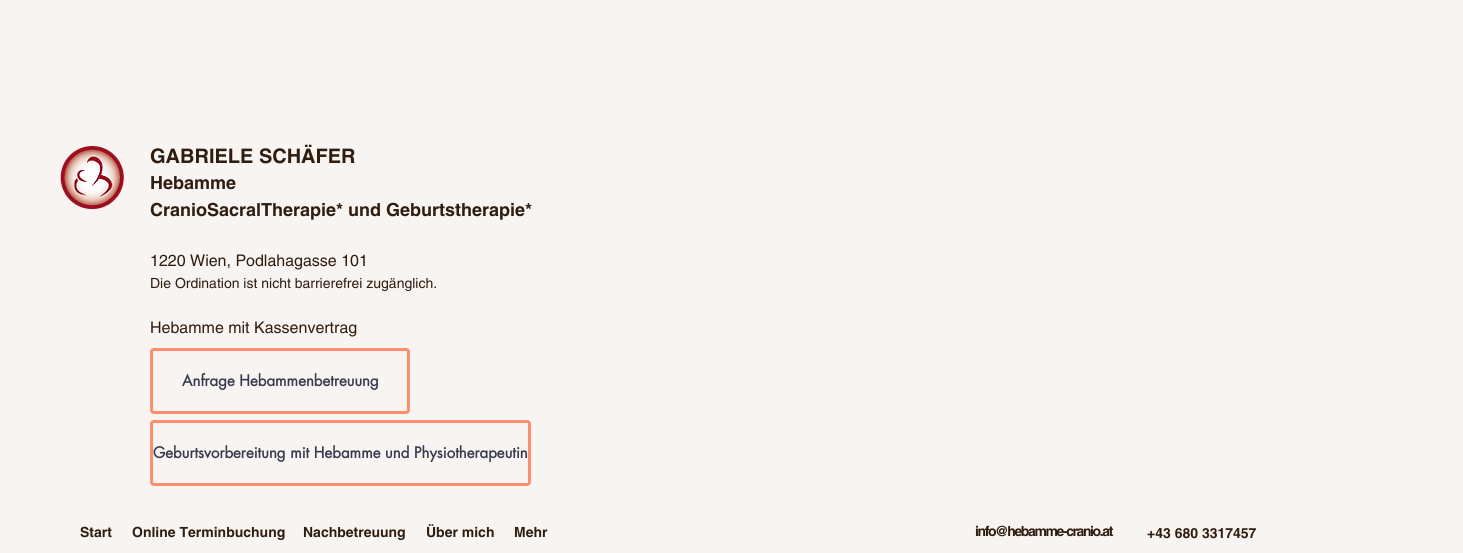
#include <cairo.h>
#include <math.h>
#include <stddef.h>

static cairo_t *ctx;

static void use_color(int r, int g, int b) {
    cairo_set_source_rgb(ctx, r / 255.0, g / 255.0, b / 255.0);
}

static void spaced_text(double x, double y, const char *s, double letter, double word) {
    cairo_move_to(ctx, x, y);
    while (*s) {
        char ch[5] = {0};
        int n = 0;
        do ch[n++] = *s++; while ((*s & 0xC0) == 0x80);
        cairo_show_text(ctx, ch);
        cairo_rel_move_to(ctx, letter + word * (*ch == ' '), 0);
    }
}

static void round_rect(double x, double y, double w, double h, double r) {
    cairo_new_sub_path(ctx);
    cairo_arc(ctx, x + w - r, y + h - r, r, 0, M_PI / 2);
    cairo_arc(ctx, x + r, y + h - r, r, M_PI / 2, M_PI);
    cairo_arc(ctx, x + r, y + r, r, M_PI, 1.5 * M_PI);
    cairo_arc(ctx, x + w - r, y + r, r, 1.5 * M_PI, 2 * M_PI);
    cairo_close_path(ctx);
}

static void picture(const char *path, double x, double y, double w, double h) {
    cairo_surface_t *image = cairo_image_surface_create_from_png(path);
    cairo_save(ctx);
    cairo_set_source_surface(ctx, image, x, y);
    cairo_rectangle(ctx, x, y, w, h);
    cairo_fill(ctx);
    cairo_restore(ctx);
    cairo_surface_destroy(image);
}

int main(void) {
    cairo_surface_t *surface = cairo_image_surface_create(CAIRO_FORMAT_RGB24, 1463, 553);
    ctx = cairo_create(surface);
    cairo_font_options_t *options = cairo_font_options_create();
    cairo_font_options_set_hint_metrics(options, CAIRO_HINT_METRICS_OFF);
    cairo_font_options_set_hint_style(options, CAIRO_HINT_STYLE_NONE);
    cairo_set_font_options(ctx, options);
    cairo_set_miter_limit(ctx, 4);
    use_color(248, 244, 241);
    cairo_paint(ctx);
    picture("img1.png", 60, 145, 64, 64);
    cairo_select_font_face(ctx, "helvetica", CAIRO_FONT_SLANT_NORMAL, CAIRO_FONT_WEIGHT_BOLD);
    cairo_set_font_size(ctx, 20);
    use_color(48, 29, 16);
    cairo_move_to(ctx, 150, 163);
    cairo_show_text(ctx, "GABRIELE SCHÄFER");
    cairo_set_font_size(ctx, 18);
    cairo_move_to(ctx, 150, 189);
    cairo_show_text(ctx, "Hebamme");
    cairo_move_to(ctx, 150, 216);
    cairo_show_text(ctx, "CranioSacralTherapie* und Geburtstherapie*");
    cairo_select_font_face(ctx, "helvetica", CAIRO_FONT_SLANT_NORMAL, CAIRO_FONT_WEIGHT_NORMAL);
    cairo_set_font_size(ctx, 16);
    cairo_move_to(ctx, 150, 266);
    cairo_show_text(ctx, "1220 Wien, Podlahagasse 101");
    cairo_set_font_size(ctx, 14);
    cairo_move_to(ctx, 150, 288);
    cairo_show_text(ctx, "Die Ordination ist nicht barrierefrei zugänglich.");
    cairo_set_font_size(ctx, 16);
    cairo_move_to(ctx, 150, 333);
    cairo_show_text(ctx, "Hebamme mit Kassenvertrag");
    round_rect(151.5, 349.5, 257, 63, 2.5);
    use_color(255, 140, 107);
    cairo_set_line_width(ctx, 3);
    cairo_stroke(ctx);
    cairo_select_font_face(ctx, "futura", CAIRO_FONT_SLANT_NORMAL, CAIRO_FONT_WEIGHT_BOLD);
    cairo_set_font_size(ctx, 15);
    use_color(55, 59, 77);
    cairo_move_to(ctx, 182, 386);
    cairo_show_text(ctx, "Anfrage Hebammenbetreuung");
    round_rect(151.5, 421.5, 378, 63, 2.5);
    use_color(255, 140, 107);
    cairo_stroke(ctx);
    use_color(55, 59, 77);
    cairo_move_to(ctx, 153, 458);
    cairo_show_text(ctx, "Geburtsvorbereitung mit Hebamme und Physiotherapeutin");
    cairo_select_font_face(ctx, "helvetica", CAIRO_FONT_SLANT_NORMAL, CAIRO_FONT_WEIGHT_BOLD);
    cairo_set_font_size(ctx, 14);
    use_color(48, 29, 16);
    cairo_move_to(ctx, 80, 537);
    cairo_show_text(ctx, "Start");
    cairo_move_to(ctx, 132, 537);
    cairo_show_text(ctx, "Online Terminbuchung");
    cairo_move_to(ctx, 303, 537);
    cairo_show_text(ctx, "Nachbetreuung");
    cairo_move_to(ctx, 426, 537);
    cairo_show_text(ctx, "Über mich");
    cairo_move_to(ctx, 514, 537);
    cairo_show_text(ctx, "Mehr");
    spaced_text(975, 536, "info@hebamme-cranio.at", -1.4, 0);
    cairo_move_to(ctx, 1147, 538);
    cairo_show_text(ctx, "+43 680 3317457");
    cairo_surface_write_to_png(surface, "result.png");
    cairo_font_options_destroy(options);
    cairo_destroy(ctx);
    cairo_surface_destroy(surface);
    return 0;
}
